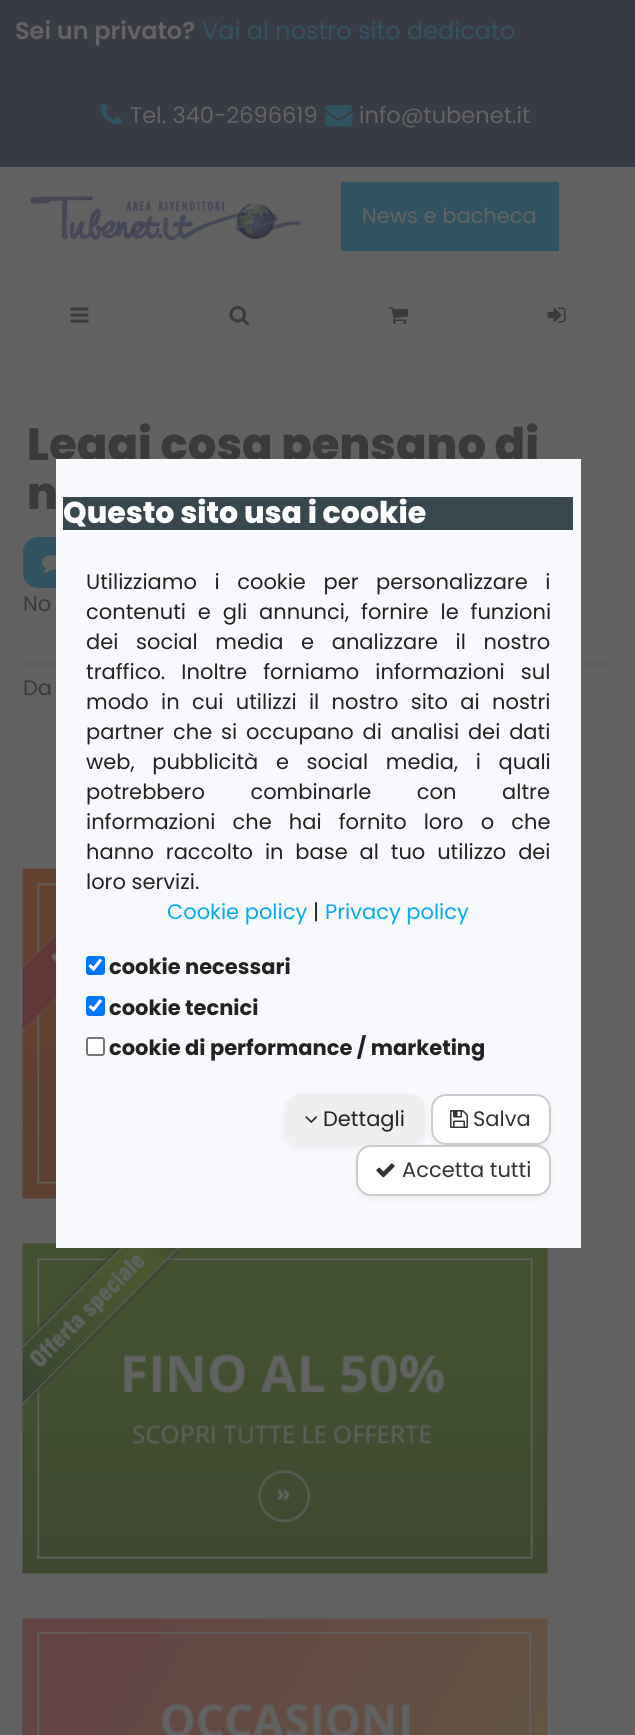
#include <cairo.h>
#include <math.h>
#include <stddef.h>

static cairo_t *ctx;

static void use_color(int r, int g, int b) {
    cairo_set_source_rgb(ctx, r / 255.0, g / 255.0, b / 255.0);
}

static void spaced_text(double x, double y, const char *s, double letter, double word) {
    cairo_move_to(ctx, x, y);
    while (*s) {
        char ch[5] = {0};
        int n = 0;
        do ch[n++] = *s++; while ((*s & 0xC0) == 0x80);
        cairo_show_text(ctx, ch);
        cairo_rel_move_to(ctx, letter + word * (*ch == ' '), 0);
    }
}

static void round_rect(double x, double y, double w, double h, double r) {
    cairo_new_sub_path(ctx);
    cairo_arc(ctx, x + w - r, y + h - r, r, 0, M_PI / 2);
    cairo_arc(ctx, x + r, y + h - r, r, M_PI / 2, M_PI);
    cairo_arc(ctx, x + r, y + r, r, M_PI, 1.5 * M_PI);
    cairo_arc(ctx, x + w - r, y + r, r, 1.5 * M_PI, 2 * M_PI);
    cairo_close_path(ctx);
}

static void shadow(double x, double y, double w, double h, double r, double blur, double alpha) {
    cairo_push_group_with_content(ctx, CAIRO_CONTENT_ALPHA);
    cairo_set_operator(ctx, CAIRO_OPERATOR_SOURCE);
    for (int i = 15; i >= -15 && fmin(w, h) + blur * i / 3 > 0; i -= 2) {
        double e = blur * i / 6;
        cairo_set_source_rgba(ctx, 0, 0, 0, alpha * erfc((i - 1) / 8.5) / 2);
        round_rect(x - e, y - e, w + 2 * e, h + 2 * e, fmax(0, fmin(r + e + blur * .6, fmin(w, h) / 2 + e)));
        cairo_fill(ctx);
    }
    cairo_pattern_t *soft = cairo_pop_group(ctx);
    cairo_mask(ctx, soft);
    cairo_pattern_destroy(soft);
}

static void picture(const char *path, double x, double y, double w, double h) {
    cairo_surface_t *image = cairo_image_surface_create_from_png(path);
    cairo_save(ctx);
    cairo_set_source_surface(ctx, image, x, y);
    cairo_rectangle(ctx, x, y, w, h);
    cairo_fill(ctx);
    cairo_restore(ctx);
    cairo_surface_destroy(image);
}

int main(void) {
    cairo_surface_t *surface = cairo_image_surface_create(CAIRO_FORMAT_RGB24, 635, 1735);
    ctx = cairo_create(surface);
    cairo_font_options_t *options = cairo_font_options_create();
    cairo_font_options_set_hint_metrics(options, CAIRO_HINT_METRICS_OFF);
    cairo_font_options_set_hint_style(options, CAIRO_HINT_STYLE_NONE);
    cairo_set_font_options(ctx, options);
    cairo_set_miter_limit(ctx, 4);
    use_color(98, 98, 98);
    cairo_paint(ctx);
    use_color(57, 59, 68);
    cairo_rectangle(ctx, 0, 0, 635, 167);
    cairo_fill(ctx);
    cairo_select_font_face(ctx, "Poppins SemiBold", CAIRO_FONT_SLANT_NORMAL, CAIRO_FONT_WEIGHT_NORMAL);
    cairo_set_font_size(ctx, 24);
    use_color(99, 99, 99);
    cairo_move_to(ctx, 15, 39);
    cairo_show_text(ctx, "Sei un privato?");
    cairo_select_font_face(ctx, "Poppins", CAIRO_FONT_SLANT_NORMAL, CAIRO_FONT_WEIGHT_NORMAL);
    use_color(49, 82, 97);
    cairo_move_to(ctx, 202, 39);
    cairo_show_text(ctx, "Vai al nostro sito dedicato");
    picture("img1.png", 100, 103, 22, 22);
    cairo_set_font_size(ctx, 22.5);
    use_color(99, 99, 99);
    cairo_move_to(ctx, 130, 123);
    cairo_show_text(ctx, "Tel. 340-2696619");
    picture("img2.png", 325, 105, 28, 22);
    cairo_move_to(ctx, 359, 123);
    cairo_show_text(ctx, "info@tubenet.it");
    picture("img3.png", 30, 196, 272, 44);
    use_color(49, 82, 97);
    cairo_rectangle(ctx, 341, 182, 218, 69);
    cairo_fill(ctx);
    cairo_set_font_size(ctx, 21);
    use_color(99, 99, 99);
    cairo_move_to(ctx, 362, 223);
    cairo_show_text(ctx, "News e bacheca");
    picture("img4.png", 70, 307, 19, 16);
    picture("img5.png", 229, 306, 20, 20);
    picture("img6.png", 388, 307, 20, 17);
    picture("img7.png", 547, 307, 19, 16);
    cairo_select_font_face(ctx, "Poppins ExtraBold", CAIRO_FONT_SLANT_NORMAL, CAIRO_FONT_WEIGHT_NORMAL);
    cairo_set_font_size(ctx, 45);
    use_color(58, 58, 58);
    cairo_move_to(ctx, 27, 460);
    cairo_show_text(ctx, "Leggi cosa pensano di");
    cairo_move_to(ctx, 27, 509);
    cairo_show_text(ctx, "n");
    use_color(49, 82, 97);
    round_rect(24, 538, 287, 49, 14);
    cairo_fill_preserve(ctx);
    cairo_stroke(ctx);
    picture("img8.png", 42, 555, 14, 18);
    cairo_select_font_face(ctx, "Poppins", CAIRO_FONT_SLANT_NORMAL, CAIRO_FONT_WEIGHT_NORMAL);
    cairo_set_font_size(ctx, 21);
    use_color(58, 58, 58);
    cairo_move_to(ctx, 23, 611);
    cairo_show_text(ctx, "No");
    use_color(92, 92, 92);
    cairo_rectangle(ctx, 23, 663, 591, 2);
    cairo_fill(ctx);
    use_color(58, 58, 58);
    cairo_move_to(ctx, 23, 695);
    cairo_show_text(ctx, "Da");
    picture("img13.png", 22, 1243, 526, 331);
    use_color(248, 249, 252);
    cairo_rectangle(ctx, 56, 459, 525, 789);
    cairo_fill(ctx);
    use_color(56, 71, 77);
    cairo_rectangle(ctx, 63, 497, 510, 33);
    cairo_fill(ctx);
    cairo_select_font_face(ctx, "Poppins ExtraBold", CAIRO_FONT_SLANT_NORMAL, CAIRO_FONT_WEIGHT_NORMAL);
    cairo_set_font_size(ctx, 30);
    use_color(255, 255, 255);
    cairo_move_to(ctx, 63, 523);
    cairo_show_text(ctx, "Questo sito usa i cookie");
    cairo_select_font_face(ctx, "Poppins", CAIRO_FONT_SLANT_NORMAL, CAIRO_FONT_WEIGHT_NORMAL);
    cairo_set_font_size(ctx, 21);
    use_color(34, 34, 34);
    spaced_text(86, 589, "Utilizziamo i cookie per personalizzare i", 0, 12);
    spaced_text(86, 619, "contenuti e gli annunci, fornire le funzioni", 0, 6.25);
    spaced_text(86, 649, "dei social media e analizzare il nostro", 0, 12);
    spaced_text(86, 679, "traffico. Inoltre forniamo informazioni sul", 0, 10.5);
    spaced_text(86, 709, "modo in cui utilizzi il nostro sito ai nostri", 0, 6.75);
    spaced_text(86, 739, "partner che si occupano di analisi dei dati", 0, 3.25);
    spaced_text(86, 769, "web, pubblicità e social media, i quali", 0, 12);
    spaced_text(86, 799, "potrebbero combinarle con altre", 0, 40);
    spaced_text(86, 829, "informazioni che hai fornito loro o che", 0, 11.5);
    spaced_text(86, 859, "hanno raccolto in base al tuo utilizzo dei", 0, 6.25);
    cairo_move_to(ctx, 86, 889);
    cairo_show_text(ctx, "loro servizi.");
    use_color(3, 169, 244);
    cairo_move_to(ctx, 167, 919);
    cairo_show_text(ctx, "Cookie policy");
    use_color(34, 34, 34);
    cairo_move_to(ctx, 313, 919);
    cairo_show_text(ctx, "|");
    use_color(3, 169, 244);
    cairo_move_to(ctx, 325, 919);
    cairo_show_text(ctx, "Privacy policy");
    use_color(0, 117, 255);
    round_rect(86, 956, 19, 19, 3);
    cairo_fill(ctx);
    cairo_new_path(ctx);
    cairo_move_to(ctx, 89.5, 965);
    cairo_line_to(ctx, 93.5, 969);
    cairo_line_to(ctx, 101, 959.5);
    use_color(255, 255, 255);
    cairo_set_line_width(ctx, 3.1);
    cairo_stroke(ctx);
    cairo_select_font_face(ctx, "Poppins", CAIRO_FONT_SLANT_NORMAL, CAIRO_FONT_WEIGHT_BOLD);
    use_color(34, 34, 34);
    cairo_move_to(ctx, 109, 974);
    cairo_show_text(ctx, "cookie necessari");
    use_color(0, 117, 255);
    round_rect(86, 996, 19, 20, 3);
    cairo_fill(ctx);
    cairo_new_path(ctx);
    cairo_move_to(ctx, 89.5, 1006);
    cairo_line_to(ctx, 93.5, 1009.5);
    cairo_line_to(ctx, 101, 1000);
    use_color(255, 255, 255);
    cairo_stroke(ctx);
    use_color(34, 34, 34);
    cairo_move_to(ctx, 109, 1015);
    cairo_show_text(ctx, "cookie tecnici");
    use_color(255, 255, 255);
    round_rect(87, 1038, 17, 17, 2);
    cairo_fill_preserve(ctx);
    use_color(118, 118, 118);
    cairo_set_line_width(ctx, 2);
    cairo_stroke(ctx);
    use_color(34, 34, 34);
    cairo_move_to(ctx, 109, 1055);
    cairo_show_text(ctx, "cookie di performance / marketing");
    use_color(0, 0, 0);
    shadow(285, 1097, 140, 51, 15, 3, 0.05);
    use_color(239, 239, 239);
    round_rect(285, 1094, 140, 51, 15);
    cairo_fill(ctx);
    picture("img9.png", 305, 1116, 12, 7);
    cairo_select_font_face(ctx, "Poppins", CAIRO_FONT_SLANT_NORMAL, CAIRO_FONT_WEIGHT_NORMAL);
    use_color(34, 34, 34);
    cairo_move_to(ctx, 323, 1126);
    cairo_show_text(ctx, "Dettagli");
    use_color(0, 0, 0);
    shadow(431, 1097, 120, 51, 15, 3, 0.05);
    use_color(255, 255, 255);
    round_rect(432, 1095, 118, 49, 14);
    cairo_fill_preserve(ctx);
    use_color(204, 204, 204);
    cairo_stroke(ctx);
    picture("img10.png", 450, 1110, 18, 18);
    use_color(51, 51, 51);
    cairo_move_to(ctx, 473, 1126);
    cairo_show_text(ctx, "Salva");
    use_color(0, 0, 0);
    shadow(356, 1148, 195, 51, 15, 3, 0.05);
    use_color(255, 255, 255);
    round_rect(357, 1146, 193, 49, 14);
    cairo_fill_preserve(ctx);
    use_color(204, 204, 204);
    cairo_stroke(ctx);
    picture("img11.png", 376, 1163, 19, 15);
    use_color(51, 51, 51);
    cairo_move_to(ctx, 402, 1177);
    cairo_show_text(ctx, "Accetta tutti");
    picture("img12.png", 22, 868, 34, 331);
    picture("img14.png", 22, 1618, 526, 117);
    cairo_surface_write_to_png(surface, "result.png");
    cairo_font_options_destroy(options);
    cairo_destroy(ctx);
    cairo_surface_destroy(surface);
    return 0;
}
